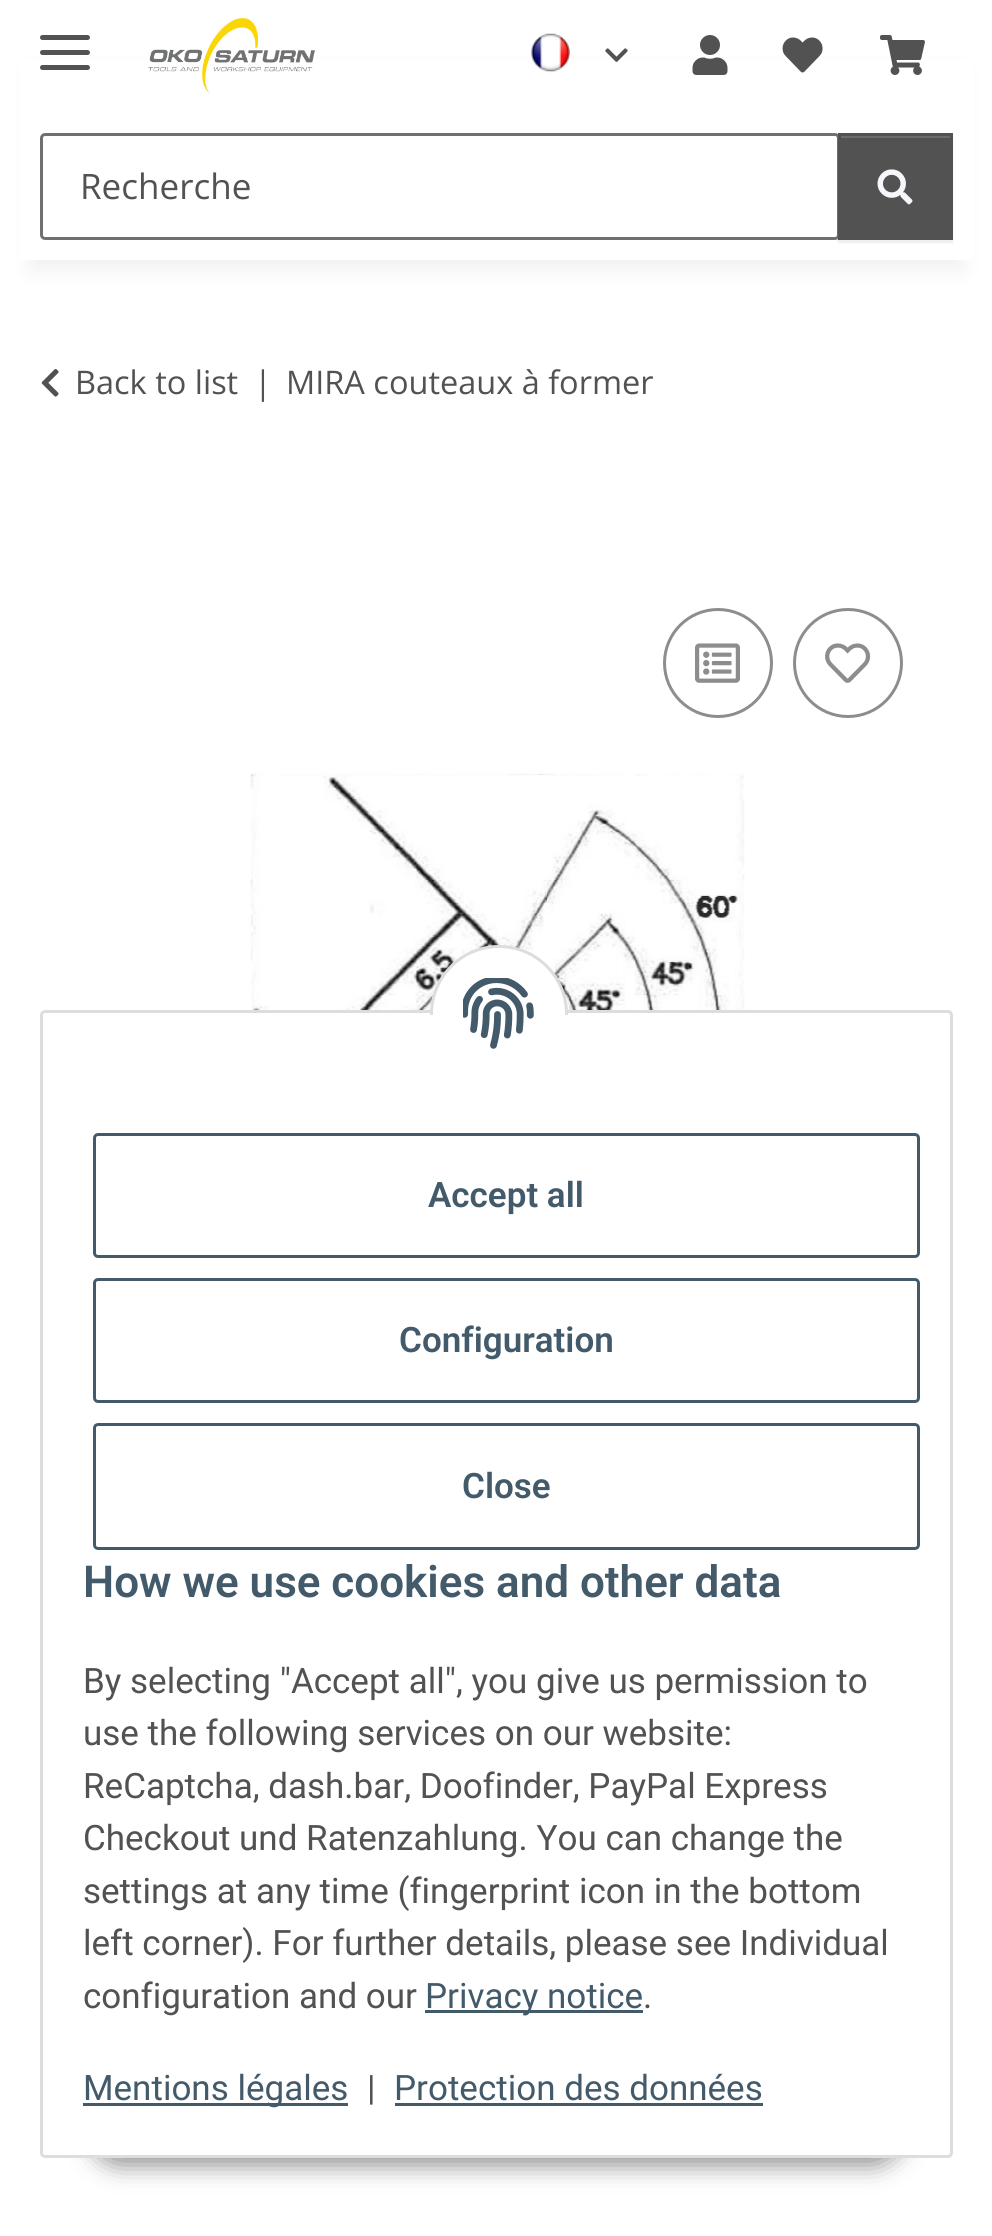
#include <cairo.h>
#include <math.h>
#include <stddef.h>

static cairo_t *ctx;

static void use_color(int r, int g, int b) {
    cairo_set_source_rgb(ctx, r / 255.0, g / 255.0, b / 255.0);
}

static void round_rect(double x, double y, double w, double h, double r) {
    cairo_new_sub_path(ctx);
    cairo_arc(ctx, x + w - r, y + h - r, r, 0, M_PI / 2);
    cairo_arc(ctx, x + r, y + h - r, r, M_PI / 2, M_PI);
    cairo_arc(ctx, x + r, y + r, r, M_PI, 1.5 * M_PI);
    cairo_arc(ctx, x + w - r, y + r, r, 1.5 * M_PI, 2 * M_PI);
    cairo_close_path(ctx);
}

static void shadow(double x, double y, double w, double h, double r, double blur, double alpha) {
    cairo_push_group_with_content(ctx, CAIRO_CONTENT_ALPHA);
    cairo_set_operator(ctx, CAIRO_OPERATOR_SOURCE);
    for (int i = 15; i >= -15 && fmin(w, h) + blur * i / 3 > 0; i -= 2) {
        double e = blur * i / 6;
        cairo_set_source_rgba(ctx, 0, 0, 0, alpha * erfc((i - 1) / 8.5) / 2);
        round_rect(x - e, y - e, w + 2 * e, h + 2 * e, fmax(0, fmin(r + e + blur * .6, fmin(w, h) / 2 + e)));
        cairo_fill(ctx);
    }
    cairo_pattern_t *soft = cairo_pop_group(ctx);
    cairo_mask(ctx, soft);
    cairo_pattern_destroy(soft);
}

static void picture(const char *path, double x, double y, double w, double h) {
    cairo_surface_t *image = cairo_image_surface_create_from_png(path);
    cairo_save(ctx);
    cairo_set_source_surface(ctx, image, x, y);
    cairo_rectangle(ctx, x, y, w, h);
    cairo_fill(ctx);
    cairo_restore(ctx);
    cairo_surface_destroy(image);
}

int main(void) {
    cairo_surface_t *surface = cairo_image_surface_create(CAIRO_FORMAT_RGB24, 992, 2236);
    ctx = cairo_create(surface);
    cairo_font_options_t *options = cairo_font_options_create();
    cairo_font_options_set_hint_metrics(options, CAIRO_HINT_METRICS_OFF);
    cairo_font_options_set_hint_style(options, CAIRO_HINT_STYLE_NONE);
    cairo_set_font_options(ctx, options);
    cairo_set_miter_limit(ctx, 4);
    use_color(255, 255, 255);
    cairo_paint(ctx);
    use_color(0, 0, 0);
    shadow(30, 70, 933, 200, 0, 11, 0.06);
    use_color(255, 255, 255);
    cairo_rectangle(ctx, 19, 59, 955, 201);
    cairo_fill(ctx);
    use_color(82, 82, 82);
    round_rect(40, 50, 50, 5, 2.5);
    cairo_fill(ctx);
    round_rect(40, 35, 50, 5, 2.5);
    cairo_fill(ctx);
    round_rect(40, 65, 50, 5, 2.5);
    cairo_fill(ctx);
    picture("img1.png", 148, 18, 167, 76);
    picture("img2.png", 531, 33, 39, 40);
    picture("img3.png", 605, 48, 23, 14);
    picture("img4.png", 692, 35, 36, 40);
    picture("img5.png", 782, 37, 41, 36);
    picture("img6.png", 880, 35, 45, 40);
    round_rect(41.5, 134.5, 797, 104, 3.5);
    use_color(112, 112, 112);
    cairo_set_line_width(ctx, 3);
    cairo_stroke(ctx);
    cairo_select_font_face(ctx, "Open Sans", CAIRO_FONT_SLANT_NORMAL, CAIRO_FONT_WEIGHT_NORMAL);
    cairo_set_font_size(ctx, 35);
    use_color(82, 82, 82);
    cairo_move_to(ctx, 80, 199);
    cairo_show_text(ctx, "Recherche");
    use_color(0, 0, 0);
    shadow(838, 135, 115, 108, 0, 1, 0.07);
    use_color(82, 82, 82);
    cairo_rectangle(ctx, 841, 138, 109, 99);
    cairo_fill(ctx);
    use_color(108, 108, 108);
    cairo_rectangle(ctx, 840, 136, 110, 2);
    cairo_fill(ctx);
    cairo_rectangle(ctx, 839.5, 134.5, 112, 104);
    use_color(82, 82, 82);
    cairo_stroke(ctx);
    picture("img7.png", 877, 169, 36, 36);
    picture("img8.png", 41, 369, 18, 28);
    cairo_set_font_size(ctx, 32.5);
    cairo_move_to(ctx, 75, 394);
    cairo_show_text(ctx, "Back to list");
    cairo_move_to(ctx, 254, 394);
    cairo_show_text(ctx, "|");
    cairo_move_to(ctx, 286, 394);
    cairo_show_text(ctx, "MIRA couteaux à former");
    cairo_new_path(ctx);
    cairo_arc(ctx, 718, 663, 53.5, 0, 2 * M_PI);
    use_color(141, 141, 141);
    cairo_stroke(ctx);
    picture("img9.png", 695, 643, 45, 40);
    cairo_arc(ctx, 848, 663, 53.5, 0, 2 * M_PI);
    cairo_stroke(ctx);
    picture("img10.png", 825, 643, 46, 40);
    picture("img11.png", 250, 773, 495, 237);
    use_color(0, 0, 0);
    shadow(88, 2085, 817, 80, 40, 12.5, 0.45);
    use_color(255, 255, 255);
    round_rect(41.5, 1011.5, 910, 1145, 3.5);
    cairo_fill_preserve(ctx);
    use_color(221, 221, 221);
    cairo_stroke(ctx);
    use_color(255, 255, 255);
    cairo_arc(ctx, 499, 1014, 67.5, 0, 2 * M_PI);
    cairo_fill_preserve(ctx);
    use_color(221, 221, 221);
    cairo_stroke(ctx);
    use_color(255, 255, 255);
    cairo_rectangle(ctx, 430, 1015, 138, 68);
    cairo_fill(ctx);
    picture("img12.png", 463, 978, 71, 71);
    round_rect(94.5, 1134.5, 824, 122, 3.5);
    use_color(67, 90, 107);
    cairo_stroke(ctx);
    cairo_select_font_face(ctx, "Roboto SemiBold", CAIRO_FONT_SLANT_NORMAL, CAIRO_FONT_WEIGHT_NORMAL);
    cairo_set_font_size(ctx, 35);
    cairo_move_to(ctx, 428, 1207);
    cairo_show_text(ctx, "Accept all");
    round_rect(94.5, 1279.5, 824, 122, 3.5);
    cairo_stroke(ctx);
    cairo_move_to(ctx, 399, 1352);
    cairo_show_text(ctx, "Configuration");
    round_rect(94.5, 1424.5, 824, 124, 3.5);
    cairo_stroke(ctx);
    cairo_move_to(ctx, 462, 1498);
    cairo_show_text(ctx, "Close");
    cairo_set_font_size(ctx, 44);
    cairo_move_to(ctx, 83, 1597);
    cairo_show_text(ctx, "How we use cookies and other data");
    cairo_select_font_face(ctx, "Roboto", CAIRO_FONT_SLANT_NORMAL, CAIRO_FONT_WEIGHT_NORMAL);
    cairo_set_font_size(ctx, 35);
    use_color(82, 82, 82);
    cairo_move_to(ctx, 83, 1693);
    cairo_show_text(ctx, "By selecting \"Accept all\", you give us permission to");
    cairo_move_to(ctx, 83, 1745);
    cairo_show_text(ctx, "use the following services on our website:");
    cairo_move_to(ctx, 83, 1798);
    cairo_show_text(ctx, "ReCaptcha, dash.bar, Doofinder, PayPal Express");
    cairo_move_to(ctx, 83, 1850);
    cairo_show_text(ctx, "Checkout und Ratenzahlung. You can change the");
    cairo_move_to(ctx, 83, 1903);
    cairo_show_text(ctx, "settings at any time (fingerprint icon in the bottom");
    cairo_move_to(ctx, 83, 1955);
    cairo_show_text(ctx, "left corner). For further details, please see Individual");
    cairo_move_to(ctx, 83, 2008);
    cairo_show_text(ctx, "configuration and our");
    use_color(67, 90, 107);
    cairo_rectangle(ctx, 425, 2010, 218, 3);
    cairo_fill(ctx);
    cairo_move_to(ctx, 425, 2008);
    cairo_show_text(ctx, "Privacy notice");
    use_color(82, 82, 82);
    cairo_move_to(ctx, 643, 2008);
    cairo_show_text(ctx, ".");
    use_color(67, 90, 107);
    cairo_rectangle(ctx, 83, 2103, 265, 3);
    cairo_fill(ctx);
    cairo_move_to(ctx, 83, 2100);
    cairo_show_text(ctx, "Mentions légales");
    use_color(82, 82, 82);
    cairo_move_to(ctx, 367, 2100);
    cairo_show_text(ctx, "|");
    use_color(67, 90, 107);
    cairo_move_to(ctx, 394, 2100);
    cairo_show_text(ctx, "Protection des données");
    cairo_rectangle(ctx, 395, 2103, 368, 3);
    cairo_fill(ctx);
    cairo_surface_write_to_png(surface, "result.png");
    cairo_font_options_destroy(options);
    cairo_destroy(ctx);
    cairo_surface_destroy(surface);
    return 0;
}
